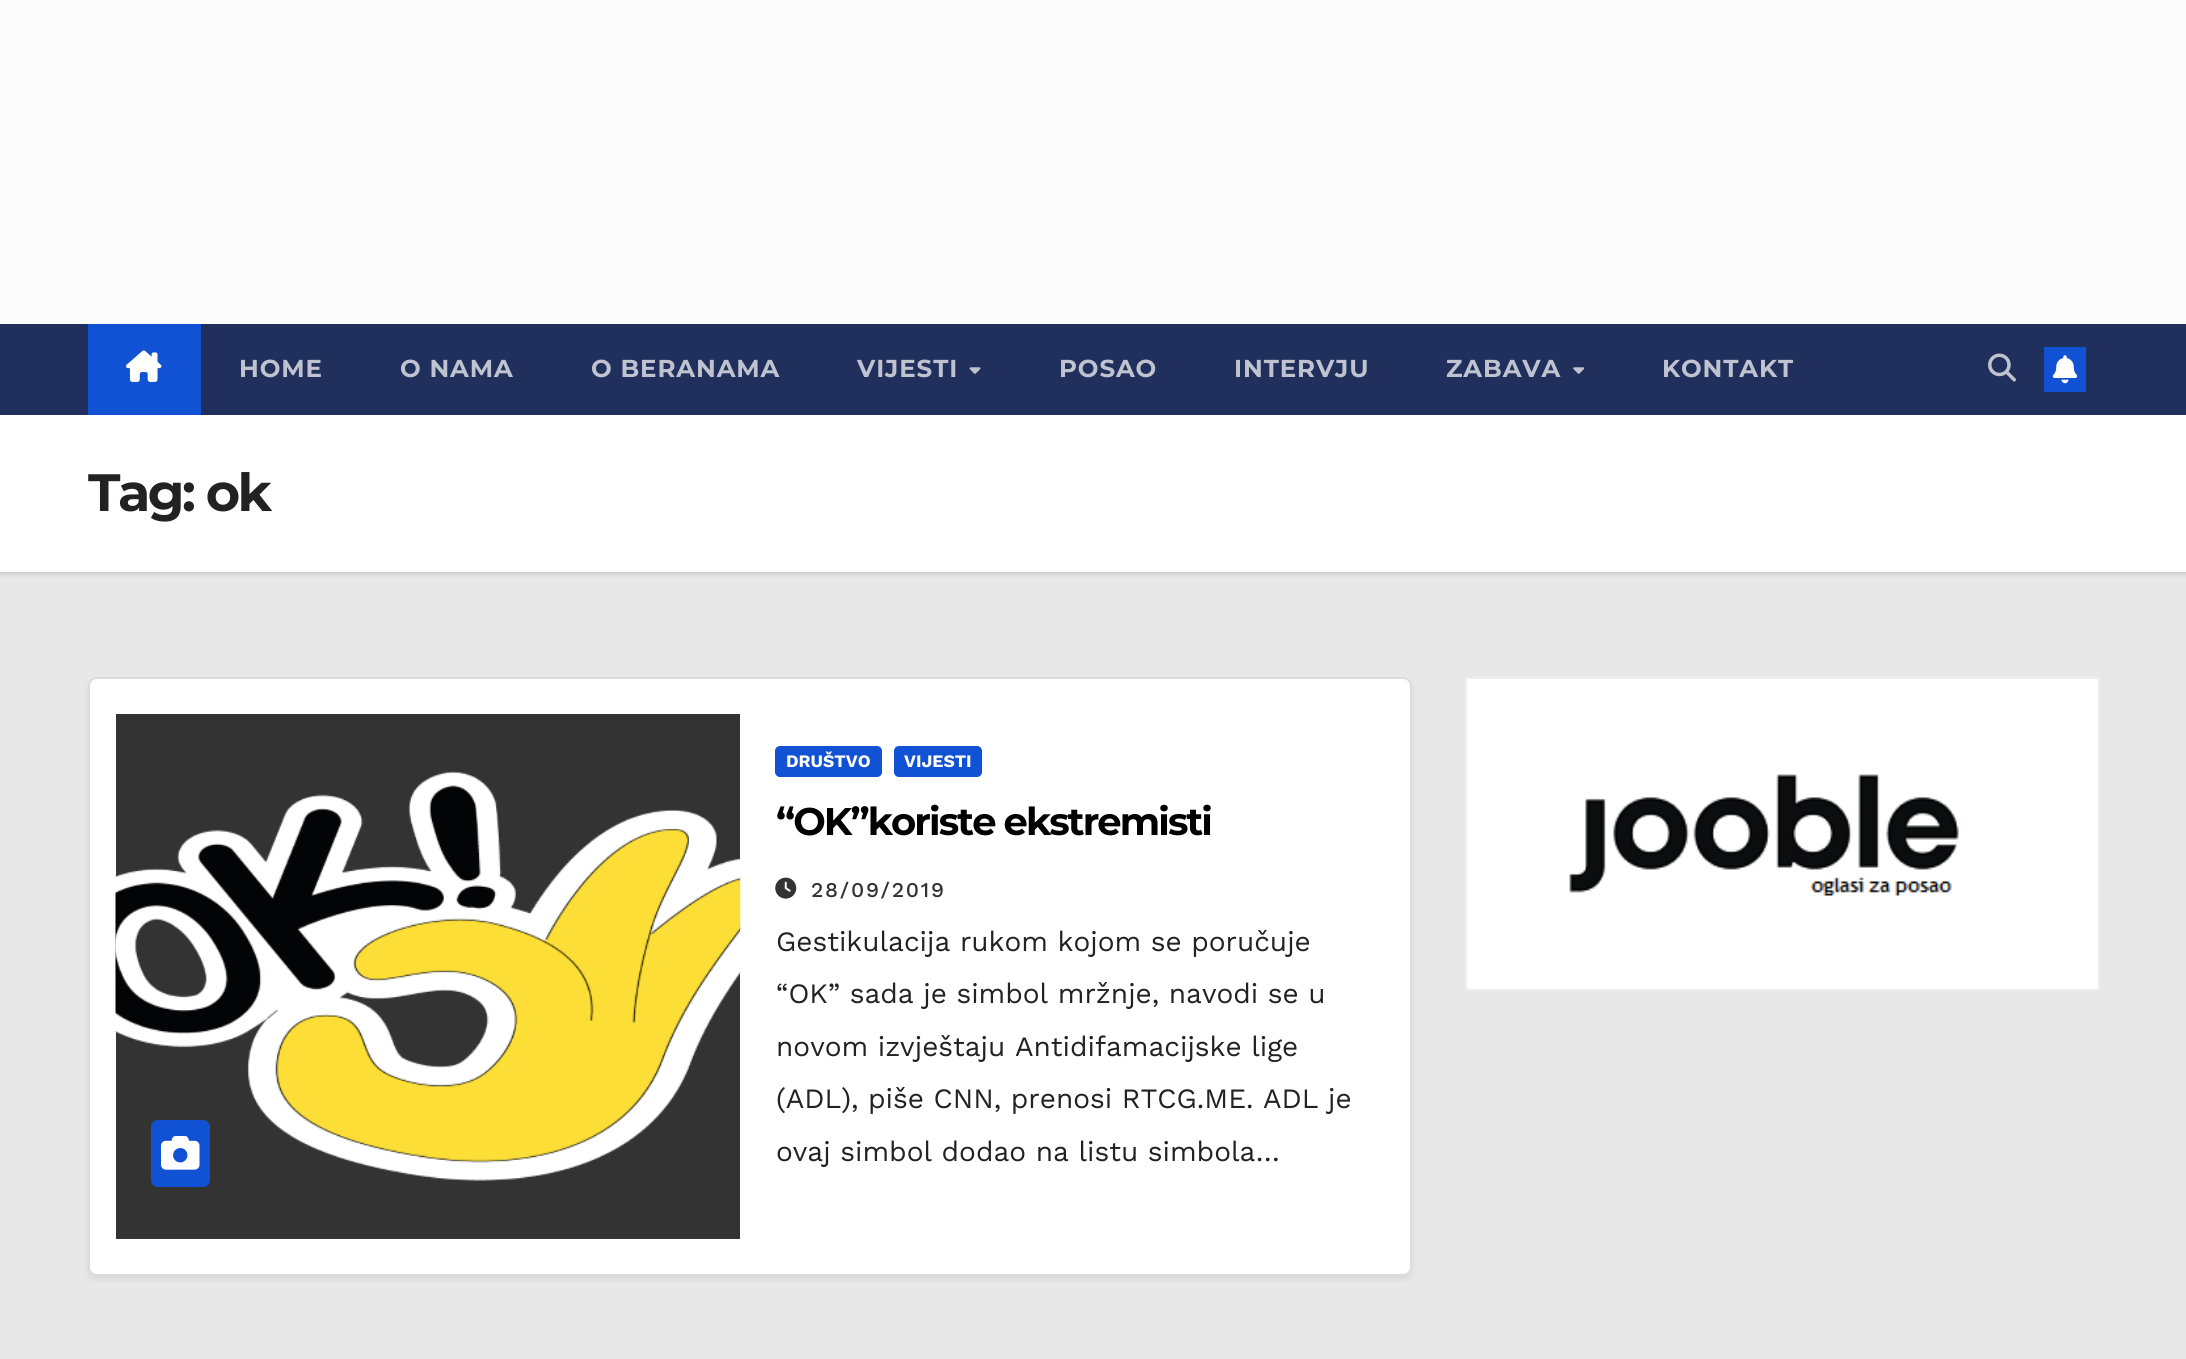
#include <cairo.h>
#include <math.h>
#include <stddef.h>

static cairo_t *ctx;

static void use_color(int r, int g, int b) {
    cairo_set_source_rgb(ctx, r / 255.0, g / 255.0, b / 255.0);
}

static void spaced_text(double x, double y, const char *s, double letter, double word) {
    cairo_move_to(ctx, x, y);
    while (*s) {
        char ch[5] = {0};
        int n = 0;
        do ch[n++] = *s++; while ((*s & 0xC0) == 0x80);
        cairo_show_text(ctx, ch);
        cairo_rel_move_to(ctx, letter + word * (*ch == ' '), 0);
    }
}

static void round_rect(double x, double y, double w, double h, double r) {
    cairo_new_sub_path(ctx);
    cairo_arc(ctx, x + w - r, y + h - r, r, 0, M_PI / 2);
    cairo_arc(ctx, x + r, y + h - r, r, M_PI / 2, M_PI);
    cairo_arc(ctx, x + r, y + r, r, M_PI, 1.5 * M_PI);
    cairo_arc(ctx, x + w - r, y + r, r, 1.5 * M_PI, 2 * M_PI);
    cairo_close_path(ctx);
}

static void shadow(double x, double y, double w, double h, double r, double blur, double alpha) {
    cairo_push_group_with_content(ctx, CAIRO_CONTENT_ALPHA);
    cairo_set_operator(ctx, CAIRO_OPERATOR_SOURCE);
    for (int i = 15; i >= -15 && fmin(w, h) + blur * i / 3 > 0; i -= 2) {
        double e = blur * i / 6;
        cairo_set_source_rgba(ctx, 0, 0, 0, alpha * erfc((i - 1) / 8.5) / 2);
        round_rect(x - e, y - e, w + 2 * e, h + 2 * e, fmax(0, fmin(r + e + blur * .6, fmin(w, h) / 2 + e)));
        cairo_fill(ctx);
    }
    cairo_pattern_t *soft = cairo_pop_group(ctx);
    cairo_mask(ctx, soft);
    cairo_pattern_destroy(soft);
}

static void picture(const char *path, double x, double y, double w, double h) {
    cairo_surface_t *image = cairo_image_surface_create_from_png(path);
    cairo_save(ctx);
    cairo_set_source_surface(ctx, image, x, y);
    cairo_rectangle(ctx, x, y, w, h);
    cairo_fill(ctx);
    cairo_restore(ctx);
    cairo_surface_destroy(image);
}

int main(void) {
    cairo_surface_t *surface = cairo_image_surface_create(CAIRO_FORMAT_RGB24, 2186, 1359);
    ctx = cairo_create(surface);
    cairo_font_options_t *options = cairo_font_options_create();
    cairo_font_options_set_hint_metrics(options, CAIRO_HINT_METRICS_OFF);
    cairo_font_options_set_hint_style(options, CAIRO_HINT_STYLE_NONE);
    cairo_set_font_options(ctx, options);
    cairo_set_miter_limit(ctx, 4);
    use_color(232, 232, 232);
    cairo_paint(ctx);
    use_color(252, 252, 252);
    cairo_rectangle(ctx, 0, 0, 2186, 324);
    cairo_fill(ctx);
    use_color(0, 0, 0);
    shadow(0, 417, 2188, 157, 0, 2.5, 0.15);
    use_color(32, 47, 91);
    cairo_rectangle(ctx, 0, 324, 2186, 91);
    cairo_fill(ctx);
    use_color(17, 81, 211);
    cairo_rectangle(ctx, 88, 324, 113, 91);
    cairo_fill(ctx);
    picture("img1.png", 126, 350, 36, 32);
    cairo_select_font_face(ctx, "Montserrat", CAIRO_FONT_SLANT_NORMAL, CAIRO_FONT_WEIGHT_BOLD);
    cairo_set_font_size(ctx, 24.5);
    use_color(190, 195, 207);
    spaced_text(239, 377, "HOME", 0.9, 0);
    spaced_text(400, 377, "O NAMA", 0.9, 0);
    spaced_text(591, 377, "O BERANAMA", 0.9, 0);
    spaced_text(857, 377, "VIJESTI", 0.9, 0);
    picture("img2.png", 969, 367, 12, 7);
    spaced_text(1059, 377, "POSAO", 0.9, 0);
    spaced_text(1234, 377, "INTERVJU", 0.9, 0);
    spaced_text(1446, 377, "ZABAVA", 0.9, 0);
    picture("img3.png", 1573, 367, 12, 7);
    spaced_text(1662, 377, "KONTAKT", 0.9, 0);
    picture("img4.png", 1988, 353, 28, 29);
    use_color(17, 81, 211);
    cairo_rectangle(ctx, 2044, 347, 42, 45);
    cairo_fill(ctx);
    picture("img5.png", 2052, 355, 26, 29);
    use_color(255, 255, 255);
    cairo_rectangle(ctx, 0, 415, 2186, 157);
    cairo_fill(ctx);
    cairo_set_font_size(ctx, 52.5);
    use_color(34, 34, 34);
    spaced_text(88, 511, "Tag: ok", -2.5, 0);
    use_color(0, 0, 0);
    shadow(88, 681, 1324, 598, 9, 3.5, 0.08);
    use_color(255, 255, 255);
    round_rect(89, 678, 1322, 597, 8);
    cairo_fill_preserve(ctx);
    use_color(221, 220, 220);
    cairo_stroke(ctx);
    use_color(51, 51, 51);
    cairo_rectangle(ctx, 116, 714, 624, 525);
    cairo_fill(ctx);
    picture("img6.png", 115, 771, 626, 410);
    use_color(17, 81, 211);
    round_rect(151, 1120, 59, 67, 7);
    cairo_fill(ctx);
    picture("img7.png", 161, 1136, 39, 34);
    round_rect(775, 746, 107, 31, 5);
    cairo_fill(ctx);
    cairo_select_font_face(ctx, "Work Sans", CAIRO_FONT_SLANT_NORMAL, CAIRO_FONT_WEIGHT_BOLD);
    cairo_set_font_size(ctx, 17.5);
    use_color(255, 255, 255);
    cairo_move_to(ctx, 786, 767);
    cairo_show_text(ctx, "DRUŠTVO");
    use_color(17, 81, 211);
    round_rect(894, 746, 88, 31, 5);
    cairo_fill(ctx);
    use_color(255, 255, 255);
    cairo_move_to(ctx, 904, 767);
    cairo_show_text(ctx, "VIJESTI");
    cairo_select_font_face(ctx, "Montserrat", CAIRO_FONT_SLANT_NORMAL, CAIRO_FONT_WEIGHT_BOLD);
    cairo_set_font_size(ctx, 38.5);
    use_color(0, 0, 0);
    spaced_text(776, 835, "“OK”koriste ekstremisti", -1.9, 0);
    picture("img8.png", 775, 877, 22, 22);
    cairo_select_font_face(ctx, "Work Sans Medium", CAIRO_FONT_SLANT_NORMAL, CAIRO_FONT_WEIGHT_NORMAL);
    cairo_set_font_size(ctx, 21);
    use_color(51, 51, 51);
    spaced_text(811, 897, "28/09/2019", 1.75, 0);
    cairo_select_font_face(ctx, "Work Sans", CAIRO_FONT_SLANT_NORMAL, CAIRO_FONT_WEIGHT_NORMAL);
    cairo_set_font_size(ctx, 28);
    use_color(34, 34, 34);
    cairo_move_to(ctx, 776, 951);
    cairo_show_text(ctx, "Gestikulacija rukom kojom se poručuje");
    cairo_move_to(ctx, 776, 1003);
    cairo_show_text(ctx, "“OK” sada je simbol mržnje, navodi se u");
    cairo_move_to(ctx, 776, 1056);
    cairo_show_text(ctx, "novom izvještaju Antidifamacijske lige");
    cairo_move_to(ctx, 776, 1108);
    cairo_show_text(ctx, "(ADL), piše CNN, prenosi RTCG.ME. ADL je");
    cairo_move_to(ctx, 776, 1161);
    cairo_show_text(ctx, "ovaj simbol dodao na listu simbola…");
    use_color(255, 255, 255);
    cairo_rectangle(ctx, 1466, 678, 633, 312);
    cairo_fill_preserve(ctx);
    use_color(238, 238, 238);
    cairo_stroke(ctx);
    picture("img9.png", 1569, 774, 390, 122);
    cairo_surface_write_to_png(surface, "result.png");
    cairo_font_options_destroy(options);
    cairo_destroy(ctx);
    cairo_surface_destroy(surface);
    return 0;
}
